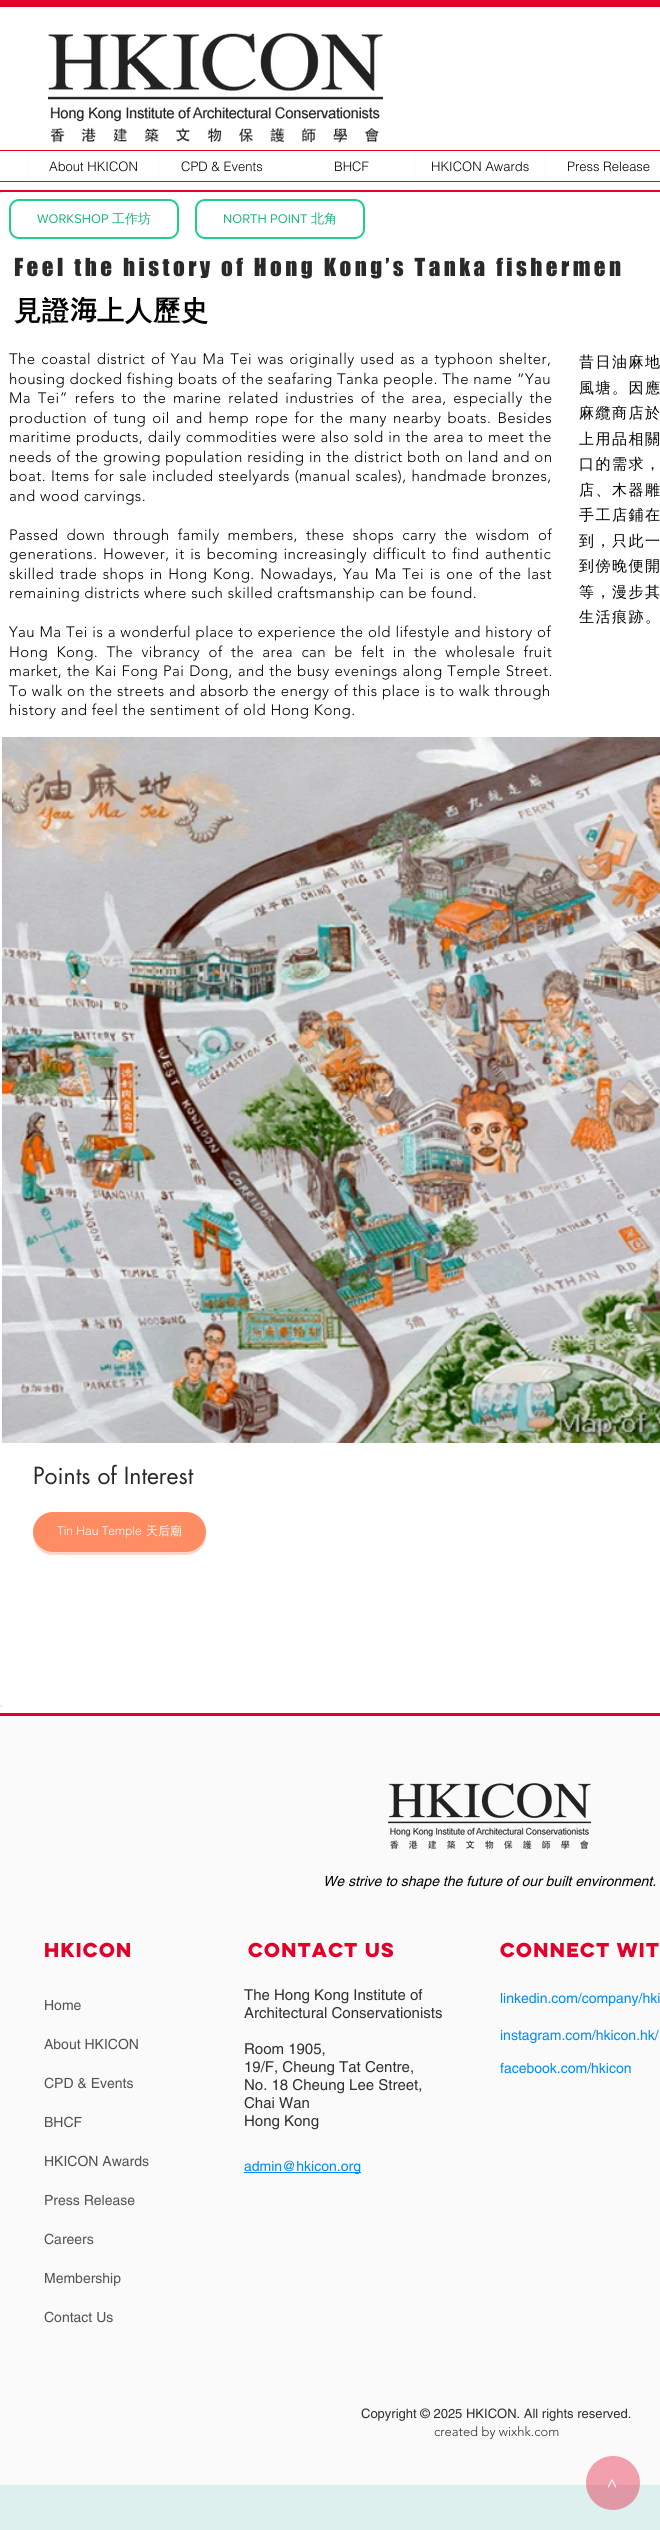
#include <cairo.h>
#include <math.h>
#include <stddef.h>

static cairo_t *ctx;

static void use_color(int r, int g, int b) {
    cairo_set_source_rgb(ctx, r / 255.0, g / 255.0, b / 255.0);
}

static void spaced_text(double x, double y, const char *s, double letter, double word) {
    cairo_move_to(ctx, x, y);
    while (*s) {
        char ch[5] = {0};
        int n = 0;
        do ch[n++] = *s++; while ((*s & 0xC0) == 0x80);
        cairo_show_text(ctx, ch);
        cairo_rel_move_to(ctx, letter + word * (*ch == ' '), 0);
    }
}

static void round_rect(double x, double y, double w, double h, double r) {
    cairo_new_sub_path(ctx);
    cairo_arc(ctx, x + w - r, y + h - r, r, 0, M_PI / 2);
    cairo_arc(ctx, x + r, y + h - r, r, M_PI / 2, M_PI);
    cairo_arc(ctx, x + r, y + r, r, M_PI, 1.5 * M_PI);
    cairo_arc(ctx, x + w - r, y + r, r, 1.5 * M_PI, 2 * M_PI);
    cairo_close_path(ctx);
}

static void picture(const char *path, double x, double y, double w, double h) {
    cairo_surface_t *image = cairo_image_surface_create_from_png(path);
    cairo_save(ctx);
    cairo_set_source_surface(ctx, image, x, y);
    cairo_rectangle(ctx, x, y, w, h);
    cairo_fill(ctx);
    cairo_restore(ctx);
    cairo_surface_destroy(image);
}

int main(void) {
    cairo_surface_t *surface = cairo_image_surface_create(CAIRO_FORMAT_RGB24, 660, 2530);
    ctx = cairo_create(surface);
    cairo_font_options_t *options = cairo_font_options_create();
    cairo_font_options_set_hint_metrics(options, CAIRO_HINT_METRICS_OFF);
    cairo_font_options_set_hint_style(options, CAIRO_HINT_STYLE_NONE);
    cairo_set_font_options(ctx, options);
    cairo_set_miter_limit(ctx, 4);
    use_color(221, 240, 238);
    cairo_paint(ctx);
    use_color(255, 255, 255);
    cairo_rectangle(ctx, 0, 7, 660, 183);
    cairo_fill(ctx);
    use_color(227, 1, 41);
    cairo_rectangle(ctx, 0, 0, 660, 7);
    cairo_fill(ctx);
    cairo_rectangle(ctx, 0, 190, 660, 2);
    cairo_fill(ctx);
    picture("img1.png", 48, 32, 335, 111);
    cairo_rectangle(ctx, -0.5, 150.5, 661, 31);
    use_color(227, 0, 41);
    cairo_set_line_width(ctx, 1);
    cairo_stroke(ctx);
    use_color(251, 251, 251);
    cairo_rectangle(ctx, 28, 151, 1, 30);
    cairo_fill(ctx);
    cairo_select_font_face(ctx, "helvetica Light", CAIRO_FONT_SLANT_NORMAL, CAIRO_FONT_WEIGHT_NORMAL);
    cairo_set_font_size(ctx, 13);
    use_color(0, 0, 0);
    cairo_move_to(ctx, 49, 171);
    cairo_show_text(ctx, "About HKICON");
    use_color(251, 251, 251);
    cairo_rectangle(ctx, 157, 151, 1, 30);
    cairo_fill(ctx);
    use_color(0, 0, 0);
    cairo_move_to(ctx, 181, 171);
    cairo_show_text(ctx, "CPD & Events");
    use_color(251, 251, 251);
    cairo_rectangle(ctx, 286, 151, 1, 30);
    cairo_fill(ctx);
    use_color(0, 0, 0);
    cairo_move_to(ctx, 334, 171);
    cairo_show_text(ctx, "BHCF");
    use_color(251, 251, 251);
    cairo_rectangle(ctx, 415, 151, 1, 30);
    cairo_fill(ctx);
    use_color(0, 0, 0);
    cairo_move_to(ctx, 431, 171);
    cairo_show_text(ctx, "HKICON Awards");
    use_color(251, 251, 251);
    cairo_rectangle(ctx, 544, 151, 1, 30);
    cairo_fill(ctx);
    use_color(0, 0, 0);
    cairo_move_to(ctx, 567, 171);
    cairo_show_text(ctx, "Press Release");
    use_color(255, 255, 255);
    round_rect(0.5, 192.5, 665, 1514, 4.5);
    cairo_fill_preserve(ctx);
    cairo_stroke(ctx);
    round_rect(10, 200, 168, 38, 9);
    use_color(32, 206, 136);
    cairo_set_line_width(ctx, 2);
    cairo_stroke(ctx);
    cairo_select_font_face(ctx, "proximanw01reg", CAIRO_FONT_SLANT_NORMAL, CAIRO_FONT_WEIGHT_NORMAL);
    use_color(29, 181, 120);
    cairo_move_to(ctx, 37, 223);
    cairo_show_text(ctx, "WORKSHOP");
    cairo_select_font_face(ctx, "WenQuanYi Zen Hei Medium", CAIRO_FONT_SLANT_NORMAL, CAIRO_FONT_WEIGHT_NORMAL);
    cairo_move_to(ctx, 112, 223);
    cairo_show_text(ctx, "工作坊");
    round_rect(196, 200, 168, 38, 9);
    use_color(32, 206, 136);
    cairo_stroke(ctx);
    cairo_select_font_face(ctx, "proximanw01reg", CAIRO_FONT_SLANT_NORMAL, CAIRO_FONT_WEIGHT_NORMAL);
    use_color(29, 181, 120);
    cairo_move_to(ctx, 223, 223);
    cairo_show_text(ctx, "NORTH POINT");
    cairo_select_font_face(ctx, "WenQuanYi Zen Hei Medium", CAIRO_FONT_SLANT_NORMAL, CAIRO_FONT_WEIGHT_NORMAL);
    cairo_move_to(ctx, 311, 223);
    cairo_show_text(ctx, "北角");
    cairo_select_font_face(ctx, "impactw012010", CAIRO_FONT_SLANT_NORMAL, CAIRO_FONT_WEIGHT_NORMAL);
    cairo_set_font_size(ctx, 23);
    use_color(41, 41, 41);
    spaced_text(14, 276, "Feel the history of Hong Kong’s Tanka fishermen", 3.45, 0);
    cairo_select_font_face(ctx, "WenQuanYi Zen Hei", CAIRO_FONT_SLANT_NORMAL, CAIRO_FONT_WEIGHT_BOLD);
    cairo_set_font_size(ctx, 27);
    use_color(0, 0, 0);
    spaced_text(14, 320, "見證", 1, 0);
    cairo_select_font_face(ctx, "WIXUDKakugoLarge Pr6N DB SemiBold", CAIRO_FONT_SLANT_NORMAL, CAIRO_FONT_WEIGHT_NORMAL);
    spaced_text(70, 320, "海", 1, 0);
    cairo_select_font_face(ctx, "WenQuanYi Zen Hei", CAIRO_FONT_SLANT_NORMAL, CAIRO_FONT_WEIGHT_BOLD);
    spaced_text(97, 320, "上人歷史", 1, 0);
    cairo_select_font_face(ctx, "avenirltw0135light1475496 Light", CAIRO_FONT_SLANT_NORMAL, CAIRO_FONT_WEIGHT_NORMAL);
    cairo_set_font_size(ctx, 15);
    spaced_text(9, 364, "The coastal district of Yau Ma Tei was originally used as a typhoon shelter,", 0.45, 1.3);
    spaced_text(9, 384, "housing docked fishing boats of the seafaring Tanka people. The name “Yau", 0.45, 0);
    spaced_text(9, 403, "Ma Tei” refers to the marine related industries of the area, especially the", 0.45, 2.4);
    spaced_text(9, 423, "production of tung oil and hemp rope for the many nearby boats. Besides", 0.45, 1.75);
    spaced_text(9, 442, "maritime products, daily commodities were also sold in the area to meet the", 0.45, 0.25);
    spaced_text(9, 462, "needs of the growing population residing in the district both on land and on", 0.45, 0.25);
    spaced_text(9, 481, "boat. Items for sale included steelyards (manual scales), handmade bronzes,", 0.45, 0.6);
    spaced_text(9, 501, "and wood carvings.", 0.45, 0);
    spaced_text(9, 540, "Passed down through family members, these shops carry the wisdom of", 0.45, 3.75);
    spaced_text(9, 559, "generations. However, it is becoming increasingly difficult to find authentic", 0.45, 1.25);
    spaced_text(9, 579, "skilled trade shops in Hong Kong. Nowadays, Yau Ma Tei is one of the last", 0.45, 1.25);
    spaced_text(9, 598, "remaining districts where such skilled craftsmanship can be found.", 0.45, 0);
    spaced_text(9, 637, "Yau Ma Tei is a wonderful place to experience the old lifestyle and history of", 0.45, 0.1);
    spaced_text(9, 657, "Hong Kong. The vibrancy of the area can be felt in the wholesale fruit", 0.45, 4);
    spaced_text(9, 676, "market, the Kai Fong Pai Dong, and the busy evenings along Temple Street.", 0.45, 0.5);
    spaced_text(9, 696, "To walk on the streets and absorb the energy of this place is to walk through", 0.45, 0);
    spaced_text(9, 715, "history and feel the sentiment of old Hong Kong.", 0.45, 0);
    cairo_select_font_face(ctx, "WenQuanYi Zen Hei Medium", CAIRO_FONT_SLANT_NORMAL, CAIRO_FONT_WEIGHT_NORMAL);
    spaced_text(579, 367, "昔日油麻地", 1.5, 0);
    spaced_text(579, 393, "風塘。因應", 1.5, 0);
    spaced_text(579, 418, "麻纜商店於", 1.5, 0);
    spaced_text(579, 444, "上用品相關", 1.5, 0);
    spaced_text(579, 469, "口的需求，", 1.5, 0);
    spaced_text(579, 495, "店、木器雕", 1.5, 0);
    spaced_text(579, 520, "手工店鋪在", 1.5, 0);
    spaced_text(579, 546, "到，只此一", 1.5, 0);
    spaced_text(579, 571, "到傍晚便開", 1.5, 0);
    spaced_text(579, 597, "等，漫步其", 1.5, 0);
    spaced_text(579, 622, "生活痕跡。", 1.5, 0);
    picture("img2.png", 2, 737, 658, 706);
    cairo_select_font_face(ctx, "futura", CAIRO_FONT_SLANT_NORMAL, CAIRO_FONT_WEIGHT_NORMAL);
    cairo_set_font_size(ctx, 23);
    use_color(41, 41, 41);
    cairo_move_to(ctx, 33, 1484);
    cairo_show_text(ctx, "Points of Interest");
    use_color(255, 215, 200);
    cairo_new_path(ctx);
    cairo_move_to(ctx, 33, 1534);
    cairo_line_to(ctx, 33, 1535);
    cairo_curve_to(ctx, 33, 1546, 42, 1555, 53, 1555);
    cairo_line_to(ctx, 186, 1555);
    cairo_curve_to(ctx, 197, 1555, 206, 1546, 206, 1535);
    cairo_line_to(ctx, 206, 1534);
    cairo_curve_to(ctx, 205, 1544, 197, 1552, 186, 1552);
    cairo_line_to(ctx, 53, 1552);
    cairo_curve_to(ctx, 42, 1552, 34, 1544, 33, 1534);
    cairo_close_path(ctx);
    cairo_fill(ctx);
    use_color(255, 140, 98);
    round_rect(33, 1512, 173, 40, 20);
    cairo_fill(ctx);
    cairo_select_font_face(ctx, "helvetica Light", CAIRO_FONT_SLANT_NORMAL, CAIRO_FONT_WEIGHT_NORMAL);
    cairo_set_font_size(ctx, 12);
    use_color(255, 255, 255);
    cairo_move_to(ctx, 57, 1535);
    cairo_show_text(ctx, "Tin Hau Temple");
    cairo_select_font_face(ctx, "WenQuanYi Zen Hei Medium", CAIRO_FONT_SLANT_NORMAL, CAIRO_FONT_WEIGHT_NORMAL);
    cairo_move_to(ctx, 146, 1535);
    cairo_show_text(ctx, "天后廟");
    cairo_rectangle(ctx, 0, 1707, 660, 6);
    cairo_fill(ctx);
    use_color(227, 1, 41);
    cairo_rectangle(ctx, 0, 1713, 660, 3);
    cairo_fill(ctx);
    use_color(250, 250, 250);
    cairo_rectangle(ctx, 0, 1716, 660, 769);
    cairo_fill(ctx);
    picture("img3.png", 388, 1783, 203, 67);
    cairo_select_font_face(ctx, "helvetica", CAIRO_FONT_SLANT_ITALIC, CAIRO_FONT_WEIGHT_NORMAL);
    cairo_set_font_size(ctx, 14);
    use_color(0, 0, 0);
    cairo_move_to(ctx, 323, 1886);
    cairo_show_text(ctx, "We strive to shape the future of our built environment.");
    cairo_select_font_face(ctx, "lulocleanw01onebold", CAIRO_FONT_SLANT_NORMAL, CAIRO_FONT_WEIGHT_BOLD);
    cairo_set_font_size(ctx, 18);
    use_color(227, 1, 41);
    spaced_text(44, 1957, "HKICON", -2.75, 0);
    spaced_text(248, 1957, "Contact Us", -2.75, 0);
    spaced_text(500, 1957, "Connect wit", -2.75, 0);
    cairo_select_font_face(ctx, "helvetica", CAIRO_FONT_SLANT_NORMAL, CAIRO_FONT_WEIGHT_NORMAL);
    cairo_set_font_size(ctx, 14);
    use_color(85, 82, 82);
    cairo_move_to(ctx, 44, 2010);
    cairo_show_text(ctx, "Home");
    cairo_move_to(ctx, 44, 2049);
    cairo_show_text(ctx, "About HKICON");
    cairo_move_to(ctx, 44, 2088);
    cairo_show_text(ctx, "CPD & Events");
    cairo_move_to(ctx, 44, 2127);
    cairo_show_text(ctx, "BHCF");
    cairo_move_to(ctx, 44, 2166);
    cairo_show_text(ctx, "HKICON Awards");
    cairo_move_to(ctx, 44, 2205);
    cairo_show_text(ctx, "Press Release");
    cairo_move_to(ctx, 44, 2244);
    cairo_show_text(ctx, "Careers");
    cairo_move_to(ctx, 44, 2283);
    cairo_show_text(ctx, "Membership");
    cairo_move_to(ctx, 44, 2322);
    cairo_show_text(ctx, "Contact Us");
    cairo_set_font_size(ctx, 15);
    use_color(48, 48, 48);
    cairo_move_to(ctx, 244, 2000);
    cairo_show_text(ctx, "The Hong Kong Institute of");
    cairo_move_to(ctx, 244, 2018);
    cairo_show_text(ctx, "Architectural Conservationists");
    cairo_move_to(ctx, 244, 2054);
    cairo_show_text(ctx, "Room 1905,");
    cairo_move_to(ctx, 244, 2072);
    cairo_show_text(ctx, "19/F, Cheung Tat Centre,");
    cairo_move_to(ctx, 244, 2090);
    cairo_show_text(ctx, "No. 18 Cheung Lee Street,");
    cairo_move_to(ctx, 244, 2108);
    cairo_show_text(ctx, "Chai Wan");
    cairo_move_to(ctx, 244, 2126);
    cairo_show_text(ctx, "Hong Kong");
    cairo_set_font_size(ctx, 14);
    use_color(0, 138, 252);
    cairo_move_to(ctx, 500, 2003);
    cairo_show_text(ctx, "linkedin.com/company/hki");
    cairo_move_to(ctx, 500, 2040);
    cairo_show_text(ctx, "instagram.com/hkicon.hk/");
    cairo_move_to(ctx, 500, 2073);
    cairo_show_text(ctx, "facebook.com/hkicon");
    cairo_rectangle(ctx, 244, 2172, 117, 1);
    cairo_fill(ctx);
    cairo_move_to(ctx, 244, 2171);
    cairo_show_text(ctx, "admin@hkicon.org");
    cairo_set_font_size(ctx, 13);
    use_color(48, 48, 48);
    cairo_move_to(ctx, 361, 2418);
    cairo_show_text(ctx, "Copyright © 2025 HKICON. All rights reserved.");
    cairo_select_font_face(ctx, "avenirltw0135light1475496 Light", CAIRO_FONT_SLANT_NORMAL, CAIRO_FONT_WEIGHT_NORMAL);
    cairo_move_to(ctx, 434, 2436);
    cairo_show_text(ctx, "created by wixhk.com");
    cairo_set_source_rgba(ctx, 0.89, 0.004, 0.161, 0.36);
    cairo_new_path(ctx);
    cairo_move_to(ctx, 586, 2483);
    cairo_curve_to(ctx, 586, 2468, 598, 2456, 613, 2456);
    cairo_curve_to(ctx, 628, 2456, 640, 2468, 640, 2483);
    cairo_curve_to(ctx, 640, 2498, 628, 2510, 613, 2510);
    cairo_curve_to(ctx, 598, 2510, 586, 2498, 586, 2483);
    cairo_close_path(ctx);
    cairo_fill(ctx);
    cairo_select_font_face(ctx, "proximanw01reg", CAIRO_FONT_SLANT_NORMAL, CAIRO_FONT_WEIGHT_NORMAL);
    cairo_set_font_size(ctx, 18);
    use_color(255, 255, 255);
    cairo_save(ctx);
    cairo_translate(ctx, 618, 2488);
    cairo_rotate(ctx, -90 * M_PI / 180);
    cairo_move_to(ctx, 0, 0);
    cairo_show_text(ctx, ">");
    cairo_restore(ctx);
    cairo_surface_write_to_png(surface, "result.png");
    cairo_font_options_destroy(options);
    cairo_destroy(ctx);
    cairo_surface_destroy(surface);
    return 0;
}
